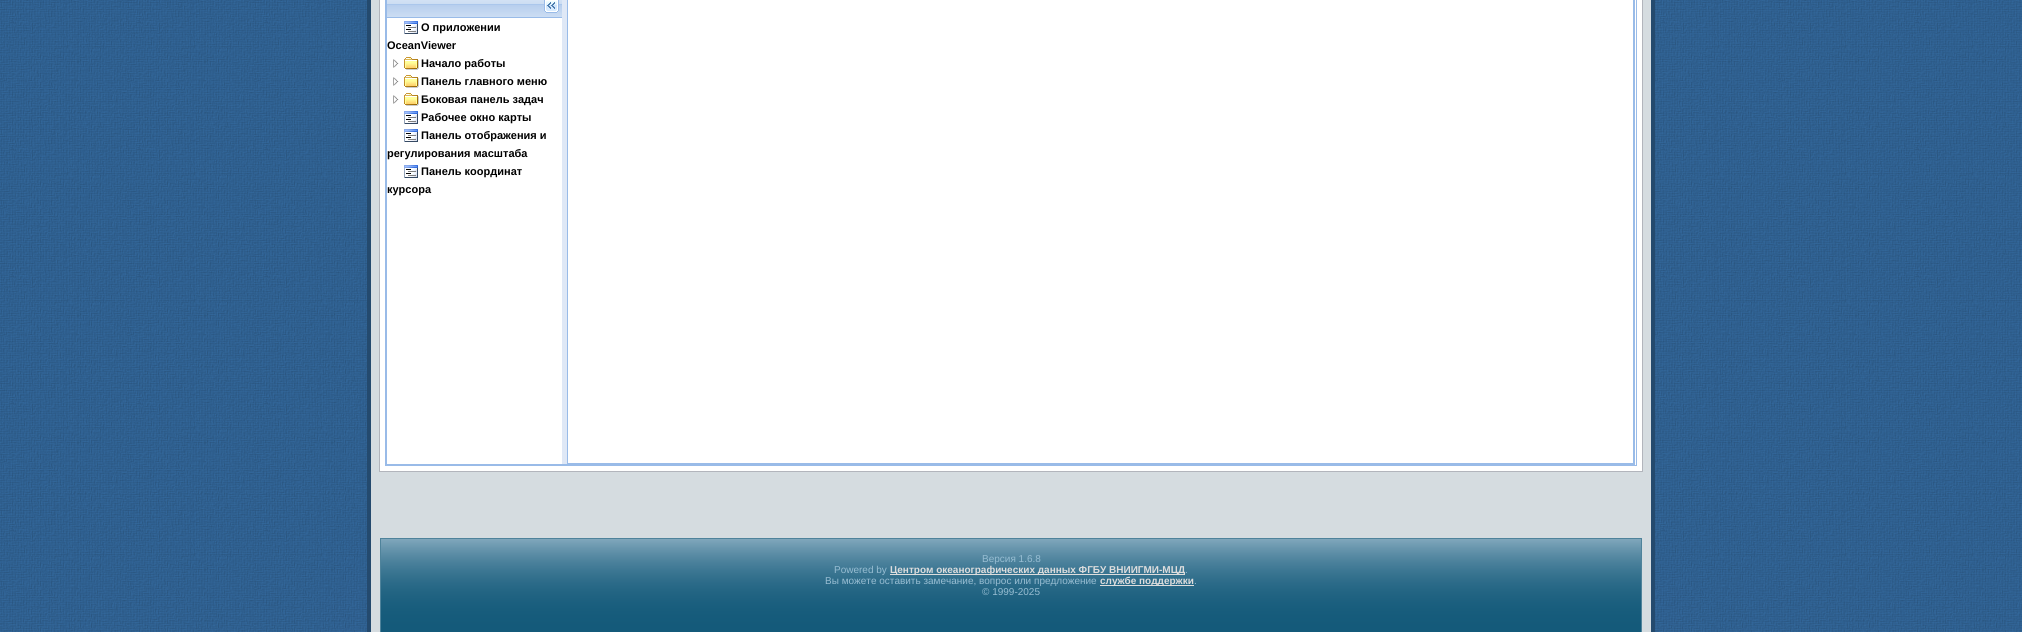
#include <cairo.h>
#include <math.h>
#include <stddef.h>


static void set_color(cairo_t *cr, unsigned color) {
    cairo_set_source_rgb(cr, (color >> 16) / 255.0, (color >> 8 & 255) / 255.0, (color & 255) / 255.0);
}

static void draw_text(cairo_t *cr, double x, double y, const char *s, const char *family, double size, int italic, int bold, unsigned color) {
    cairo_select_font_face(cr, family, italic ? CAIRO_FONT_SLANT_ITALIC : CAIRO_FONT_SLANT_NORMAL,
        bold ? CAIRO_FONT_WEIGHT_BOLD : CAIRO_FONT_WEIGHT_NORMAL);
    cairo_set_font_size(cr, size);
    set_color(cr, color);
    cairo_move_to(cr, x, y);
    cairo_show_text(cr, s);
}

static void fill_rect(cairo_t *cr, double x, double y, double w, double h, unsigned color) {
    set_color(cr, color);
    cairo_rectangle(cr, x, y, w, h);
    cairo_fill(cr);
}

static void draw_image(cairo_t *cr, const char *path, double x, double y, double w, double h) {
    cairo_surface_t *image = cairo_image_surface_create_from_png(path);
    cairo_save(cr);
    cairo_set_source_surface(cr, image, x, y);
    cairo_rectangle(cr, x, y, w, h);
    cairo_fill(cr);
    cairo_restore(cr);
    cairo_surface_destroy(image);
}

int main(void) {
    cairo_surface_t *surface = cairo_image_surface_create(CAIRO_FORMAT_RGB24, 2022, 632);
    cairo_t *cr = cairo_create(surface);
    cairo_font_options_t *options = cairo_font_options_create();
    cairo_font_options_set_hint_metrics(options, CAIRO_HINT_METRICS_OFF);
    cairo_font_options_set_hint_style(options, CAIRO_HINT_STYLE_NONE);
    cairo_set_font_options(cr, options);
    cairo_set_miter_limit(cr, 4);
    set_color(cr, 0xFFFFFF);
    cairo_paint(cr);
    draw_image(cr, "assets/img1.png", 0, 0, 2022, 632);
    fill_rect(cr, 371, 0, 1280, 632, 0xD5DCE0);
    fill_rect(cr, 1651, 0, 4, 632, 0x244A6E);
    fill_rect(cr, 367, 0, 4, 632, 0x244A6E);
    set_color(cr, 0xFFFFFF);
    cairo_rectangle(cr, 379.5, -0.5, 1263, 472);
    cairo_fill_preserve(cr);
    set_color(cr, 0xB2B5BC);
    cairo_set_line_width(cr, 1);
    cairo_stroke(cr);
    fill_rect(cr, 1636, 0, 1, 466, 0x99BBE8);
    fill_rect(cr, 385, 465, 1252, 1, 0x99BBE8);
    fill_rect(cr, 385, 0, 1, 466, 0x99BBE8);
    fill_rect(cr, 562, 0, 5, 464, 0xDFE8F6);
    cairo_rectangle(cr, 386.5, -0.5, 1248, 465);
    set_color(cr, 0x99BBE8);
    cairo_stroke(cr);
    draw_image(cr, "assets/img2.png", 387, 0, 175, 17);
    fill_rect(cr, 387, 17, 175, 1, 0x99BBE8);
    draw_image(cr, "assets/img3.png", 544, 0, 15, 13);
    draw_image(cr, "assets/img4.png", 404, 21, 14, 13);
    draw_text(cr, 421, 31, "О приложении", "Liberation Sans", 11, 0, 1, 0x000000);
    draw_text(cr, 387, 49, "OceanViewer", "Liberation Sans", 11, 0, 1, 0x000000);
    draw_image(cr, "assets/img5.png", 393, 59, 6, 9);
    draw_image(cr, "assets/img6.png", 404, 57, 15, 13);
    draw_text(cr, 421, 67, "Начало работы", "Liberation Sans", 11, 0, 1, 0x000000);
    draw_image(cr, "assets/img5.png", 393, 77, 6, 9);
    draw_image(cr, "assets/img6.png", 404, 75, 15, 13);
    draw_text(cr, 421, 85, "Панель главного меню", "Liberation Sans", 11, 0, 1, 0x000000);
    draw_image(cr, "assets/img5.png", 393, 95, 6, 9);
    draw_image(cr, "assets/img6.png", 404, 93, 15, 13);
    draw_text(cr, 421, 103, "Боковая панель задач", "Liberation Sans", 11, 0, 1, 0x000000);
    draw_image(cr, "assets/img4.png", 404, 111, 14, 13);
    draw_text(cr, 421, 121, "Рабочее окно карты", "Liberation Sans", 11, 0, 1, 0x000000);
    draw_image(cr, "assets/img4.png", 404, 129, 14, 13);
    draw_text(cr, 421, 139, "Панель отображения и", "Liberation Sans", 11, 0, 1, 0x000000);
    draw_text(cr, 387, 157, "регулирования масштаба", "Liberation Sans", 11, 0, 1, 0x000000);
    draw_image(cr, "assets/img4.png", 404, 165, 14, 13);
    draw_text(cr, 421, 175, "Панель координат", "Liberation Sans", 11, 0, 1, 0x000000);
    draw_text(cr, 387, 193, "курсора", "Liberation Sans", 11, 0, 1, 0x000000);
    cairo_rectangle(cr, 567.5, -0.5, 1066, 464);
    set_color(cr, 0x99BBE8);
    cairo_stroke(cr);
    draw_image(cr, "assets/img7.png", 381, 539, 1260, 93);
    fill_rect(cr, 380, 538, 1262, 1, 0x4F839B);
    fill_rect(cr, 1641, 538, 1, 94, 0x4F839B);
    fill_rect(cr, 380, 538, 1, 94, 0x4F839B);
    draw_text(cr, 982, 562, "Версия 1.6.8", "Liberation Sans", 10, 0, 0, 0x97BDD2);
    draw_text(cr, 834, 573, "Powered by", "Liberation Sans", 10, 0, 0, 0x97BDD2);
    fill_rect(cr, 890, 574, 295, 1, 0xDDDDDD);
    draw_text(cr, 890, 573, "Центром океанографических данных ФГБУ ВНИИГМИ-МЦД", "Liberation Sans", 10, 0, 1, 0xDDDDDD);
    draw_text(cr, 1185, 573, ".", "Liberation Sans", 10, 0, 0, 0x97BDD2);
    draw_text(cr, 825, 584, "Вы можете оставить замечание, вопрос или предложение", "Liberation Sans", 10, 0, 0, 0x97BDD2);
    fill_rect(cr, 1100, 585, 94, 1, 0xDDDDDD);
    draw_text(cr, 1100, 584, "службе поддержки", "Liberation Sans", 10, 0, 1, 0xDDDDDD);
    draw_text(cr, 1194, 584, ".", "Liberation Sans", 10, 0, 0, 0x97BDD2);
    draw_text(cr, 982, 595, "© 1999-2025", "Liberation Sans", 10, 0, 0, 0x97BDD2);
    cairo_surface_write_to_png(surface, "output.png");
    cairo_font_options_destroy(options);
    cairo_destroy(cr);
    cairo_surface_destroy(surface);
    return 0;
}
